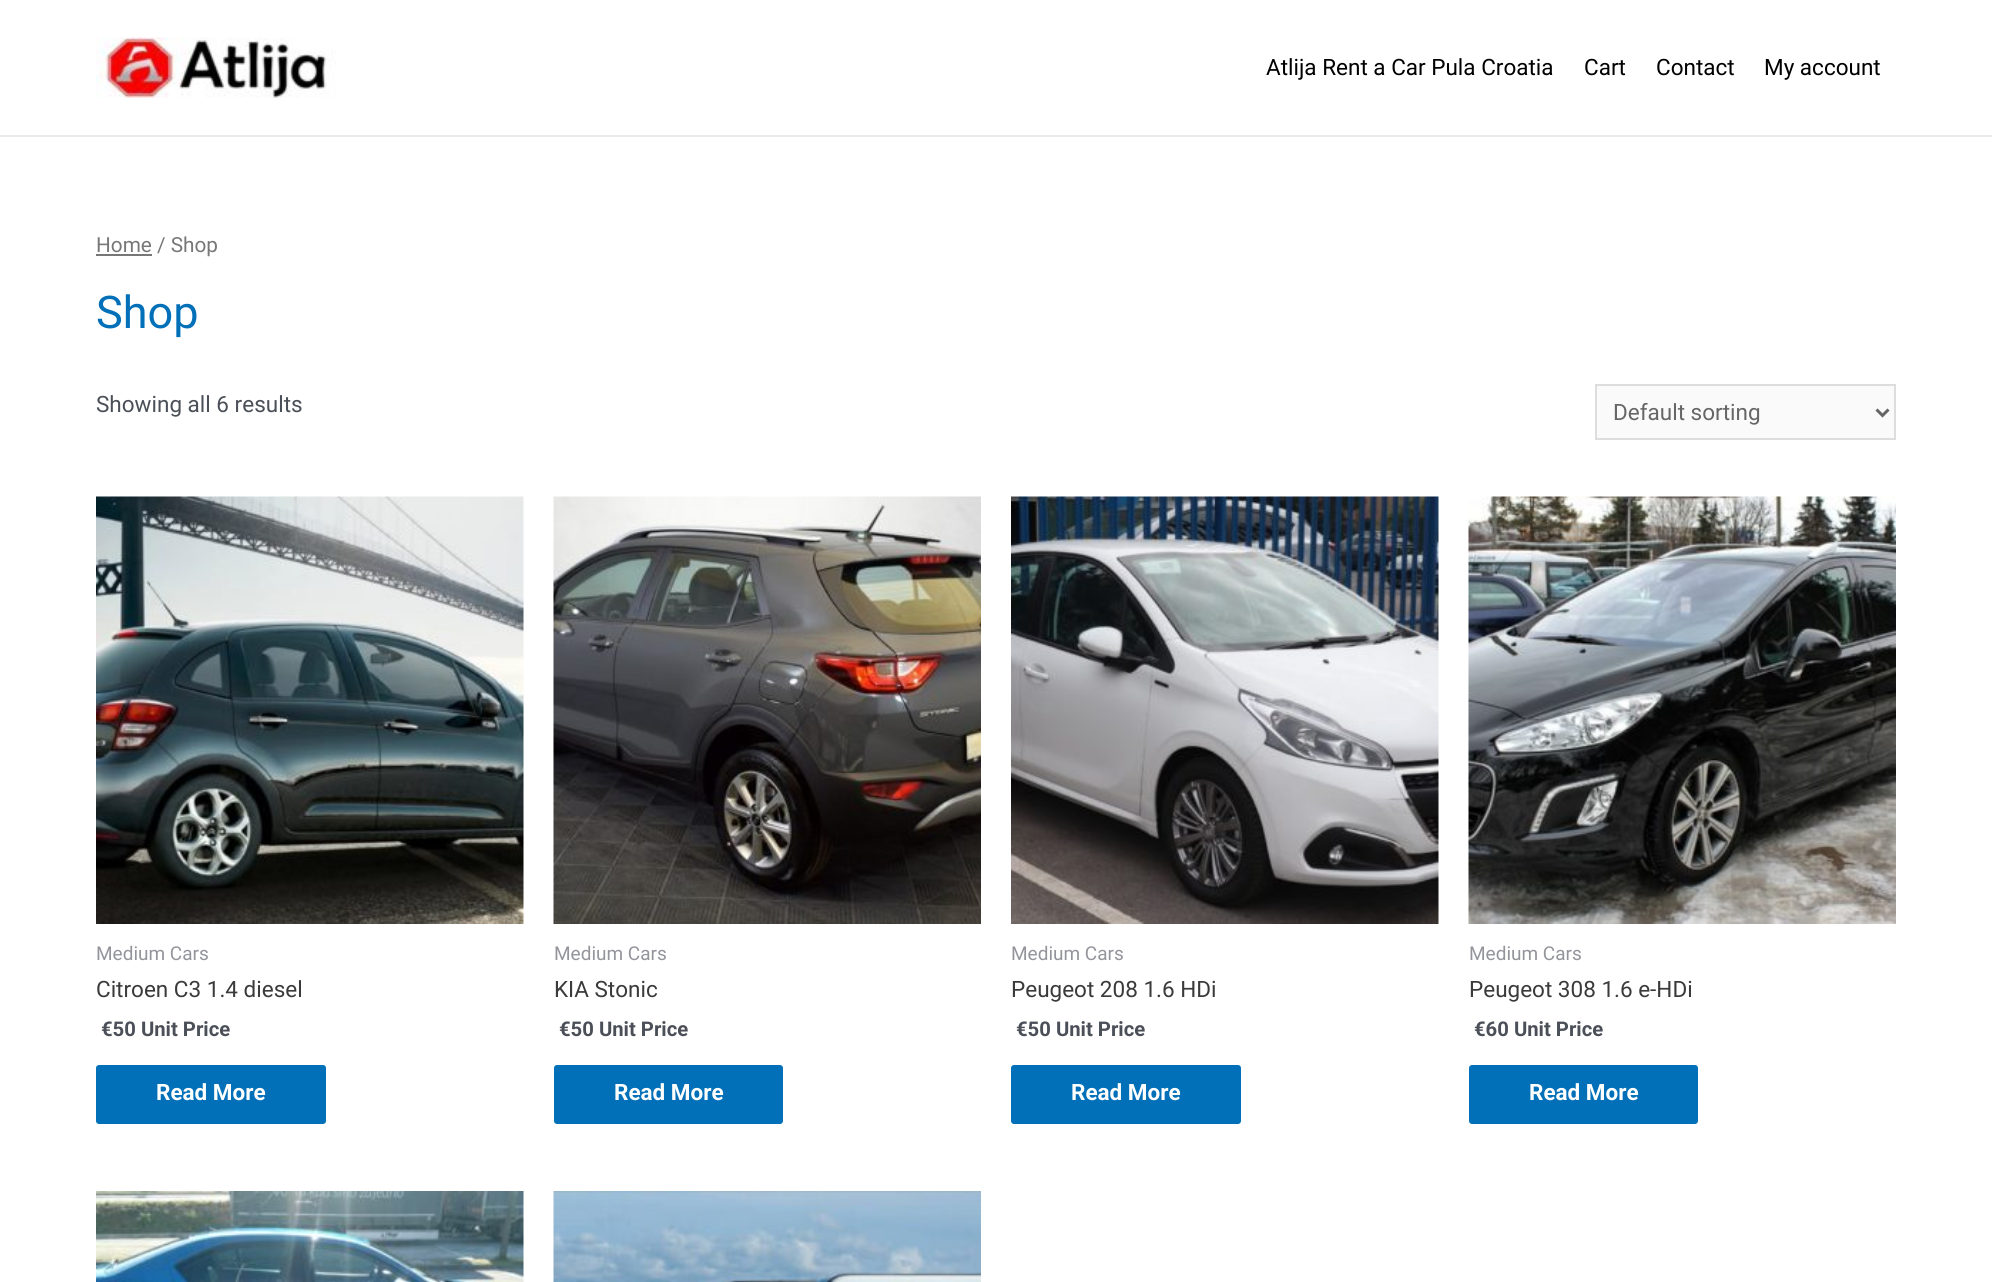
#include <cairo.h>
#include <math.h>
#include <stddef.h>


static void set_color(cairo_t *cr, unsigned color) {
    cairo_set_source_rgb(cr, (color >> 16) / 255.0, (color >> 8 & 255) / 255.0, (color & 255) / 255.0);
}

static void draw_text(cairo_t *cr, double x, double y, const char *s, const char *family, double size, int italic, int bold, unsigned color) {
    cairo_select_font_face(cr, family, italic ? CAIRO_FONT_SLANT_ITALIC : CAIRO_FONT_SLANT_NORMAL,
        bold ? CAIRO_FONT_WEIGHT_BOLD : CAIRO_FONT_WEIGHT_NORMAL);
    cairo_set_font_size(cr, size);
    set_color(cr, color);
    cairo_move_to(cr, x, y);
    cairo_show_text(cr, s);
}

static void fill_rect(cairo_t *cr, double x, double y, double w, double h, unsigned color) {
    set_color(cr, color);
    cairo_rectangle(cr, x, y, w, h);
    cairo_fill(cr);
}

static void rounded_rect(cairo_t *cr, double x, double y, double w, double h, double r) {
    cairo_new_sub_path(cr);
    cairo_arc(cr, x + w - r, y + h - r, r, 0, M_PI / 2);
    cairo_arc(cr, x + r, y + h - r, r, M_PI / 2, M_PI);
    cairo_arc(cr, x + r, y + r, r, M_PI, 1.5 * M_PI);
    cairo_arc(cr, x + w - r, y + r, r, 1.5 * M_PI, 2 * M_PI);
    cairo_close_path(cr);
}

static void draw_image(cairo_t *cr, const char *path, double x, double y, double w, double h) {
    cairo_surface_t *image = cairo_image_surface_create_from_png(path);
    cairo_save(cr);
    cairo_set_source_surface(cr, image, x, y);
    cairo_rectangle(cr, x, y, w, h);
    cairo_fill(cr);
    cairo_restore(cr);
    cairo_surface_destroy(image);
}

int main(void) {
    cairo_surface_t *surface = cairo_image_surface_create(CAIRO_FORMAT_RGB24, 1992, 1282);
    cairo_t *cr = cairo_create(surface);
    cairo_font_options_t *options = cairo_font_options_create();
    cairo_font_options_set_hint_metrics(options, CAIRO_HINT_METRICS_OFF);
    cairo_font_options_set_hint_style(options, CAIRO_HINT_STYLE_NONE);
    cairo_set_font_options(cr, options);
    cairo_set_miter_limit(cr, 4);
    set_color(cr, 0xFFFFFF);
    cairo_paint(cr);
    fill_rect(cr, 0, 135, 1992, 2, 0xEAEAEA);
    draw_image(cr, "assets/img1.png", 96, 37, 240, 61);
    draw_text(cr, 1266, 75, "Atlija Rent a Car Pula Croatia", "Roboto", 22.5, 0, 0, 0x000000);
    draw_text(cr, 1584, 75, "Cart", "Roboto", 22.5, 0, 0, 0x000000);
    draw_text(cr, 1656, 75, "Contact", "Roboto", 22.5, 0, 0, 0x000000);
    draw_text(cr, 1764, 75, "My account", "Roboto", 22.5, 0, 0, 0x000000);
    fill_rect(cr, 96, 254, 56, 2, 0x777777);
    draw_text(cr, 96, 252, "Home / Shop", "Roboto", 20.75, 0, 0, 0x777777);
    draw_text(cr, 96, 328, "Shop", "Roboto", 45, 0, 0, 0x0170B9);
    draw_text(cr, 96, 412, "Showing all 6 results", "Roboto", 22.5, 0, 0, 0x4B4F58);
    set_color(cr, 0xFAFAFA);
    cairo_rectangle(cr, 1596, 385, 299, 54);
    cairo_fill_preserve(cr);
    set_color(cr, 0xDDDDDD);
    cairo_stroke(cr);
    cairo_new_path(cr);
    cairo_move_to(cr, 1876.5, 409.5);
    cairo_line_to(cr, 1882.5, 415.5);
    cairo_line_to(cr, 1888.5, 409.5);
    set_color(cr, 0x666666);
    cairo_set_line_width(cr, 3);
    cairo_stroke(cr);
    draw_text(cr, 1613, 420, "Default sorting", "Roboto", 22.5, 0, 0, 0x666666);
    draw_image(cr, "assets/img2.png", 96, 496, 428, 428);
    draw_text(cr, 96, 960, "Medium Cars", "Roboto", 19, 0, 0, 0x93959B);
    draw_text(cr, 96, 997, "Citroen C3 1.4 diesel", "Roboto", 22.5, 0, 0, 0x3A3A3A);
    draw_text(cr, 101, 1036, "€50 Unit Price", "Roboto", 20.25, 0, 1, 0x4B4F58);
    set_color(cr, 0x0170B9);
    rounded_rect(cr, 96, 1065, 230, 59, 3);
    cairo_fill(cr);
    draw_text(cr, 156, 1100, "Read More", "Roboto", 22.5, 0, 1, 0xFFFFFF);
    draw_image(cr, "assets/img3.png", 553, 496, 428, 428);
    draw_text(cr, 554, 960, "Medium Cars", "Roboto", 19, 0, 0, 0x93959B);
    draw_text(cr, 554, 997, "KIA Stonic", "Roboto", 22.5, 0, 0, 0x3A3A3A);
    draw_text(cr, 559, 1036, "€50 Unit Price", "Roboto", 20.25, 0, 1, 0x4B4F58);
    set_color(cr, 0x0170B9);
    rounded_rect(cr, 554, 1065, 229, 59, 3);
    cairo_fill(cr);
    draw_text(cr, 614, 1100, "Read More", "Roboto", 22.5, 0, 1, 0xFFFFFF);
    draw_image(cr, "assets/img4.png", 1011, 496, 428, 428);
    draw_text(cr, 1011, 960, "Medium Cars", "Roboto", 19, 0, 0, 0x93959B);
    draw_text(cr, 1011, 997, "Peugeot 208 1.6 HDi", "Roboto", 22.5, 0, 0, 0x3A3A3A);
    draw_text(cr, 1016, 1036, "€50 Unit Price", "Roboto", 20.25, 0, 1, 0x4B4F58);
    set_color(cr, 0x0170B9);
    rounded_rect(cr, 1011, 1065, 230, 59, 3);
    cairo_fill(cr);
    draw_text(cr, 1071, 1100, "Read More", "Roboto", 22.5, 0, 1, 0xFFFFFF);
    draw_image(cr, "assets/img5.png", 1468, 496, 428, 428);
    draw_text(cr, 1469, 960, "Medium Cars", "Roboto", 19, 0, 0, 0x93959B);
    draw_text(cr, 1469, 997, "Peugeot 308 1.6 e-HDi", "Roboto", 22.5, 0, 0, 0x3A3A3A);
    draw_text(cr, 1474, 1036, "€60 Unit Price", "Roboto", 20.25, 0, 1, 0x4B4F58);
    set_color(cr, 0x0170B9);
    rounded_rect(cr, 1469, 1065, 229, 59, 3);
    cairo_fill(cr);
    draw_text(cr, 1529, 1100, "Read More", "Roboto", 22.5, 0, 1, 0xFFFFFF);
    draw_image(cr, "assets/img6.png", 96, 1191, 428, 91);
    draw_image(cr, "assets/img7.png", 553, 1191, 428, 91);
    cairo_surface_write_to_png(surface, "output.png");
    cairo_font_options_destroy(options);
    cairo_destroy(cr);
    cairo_surface_destroy(surface);
    return 0;
}
